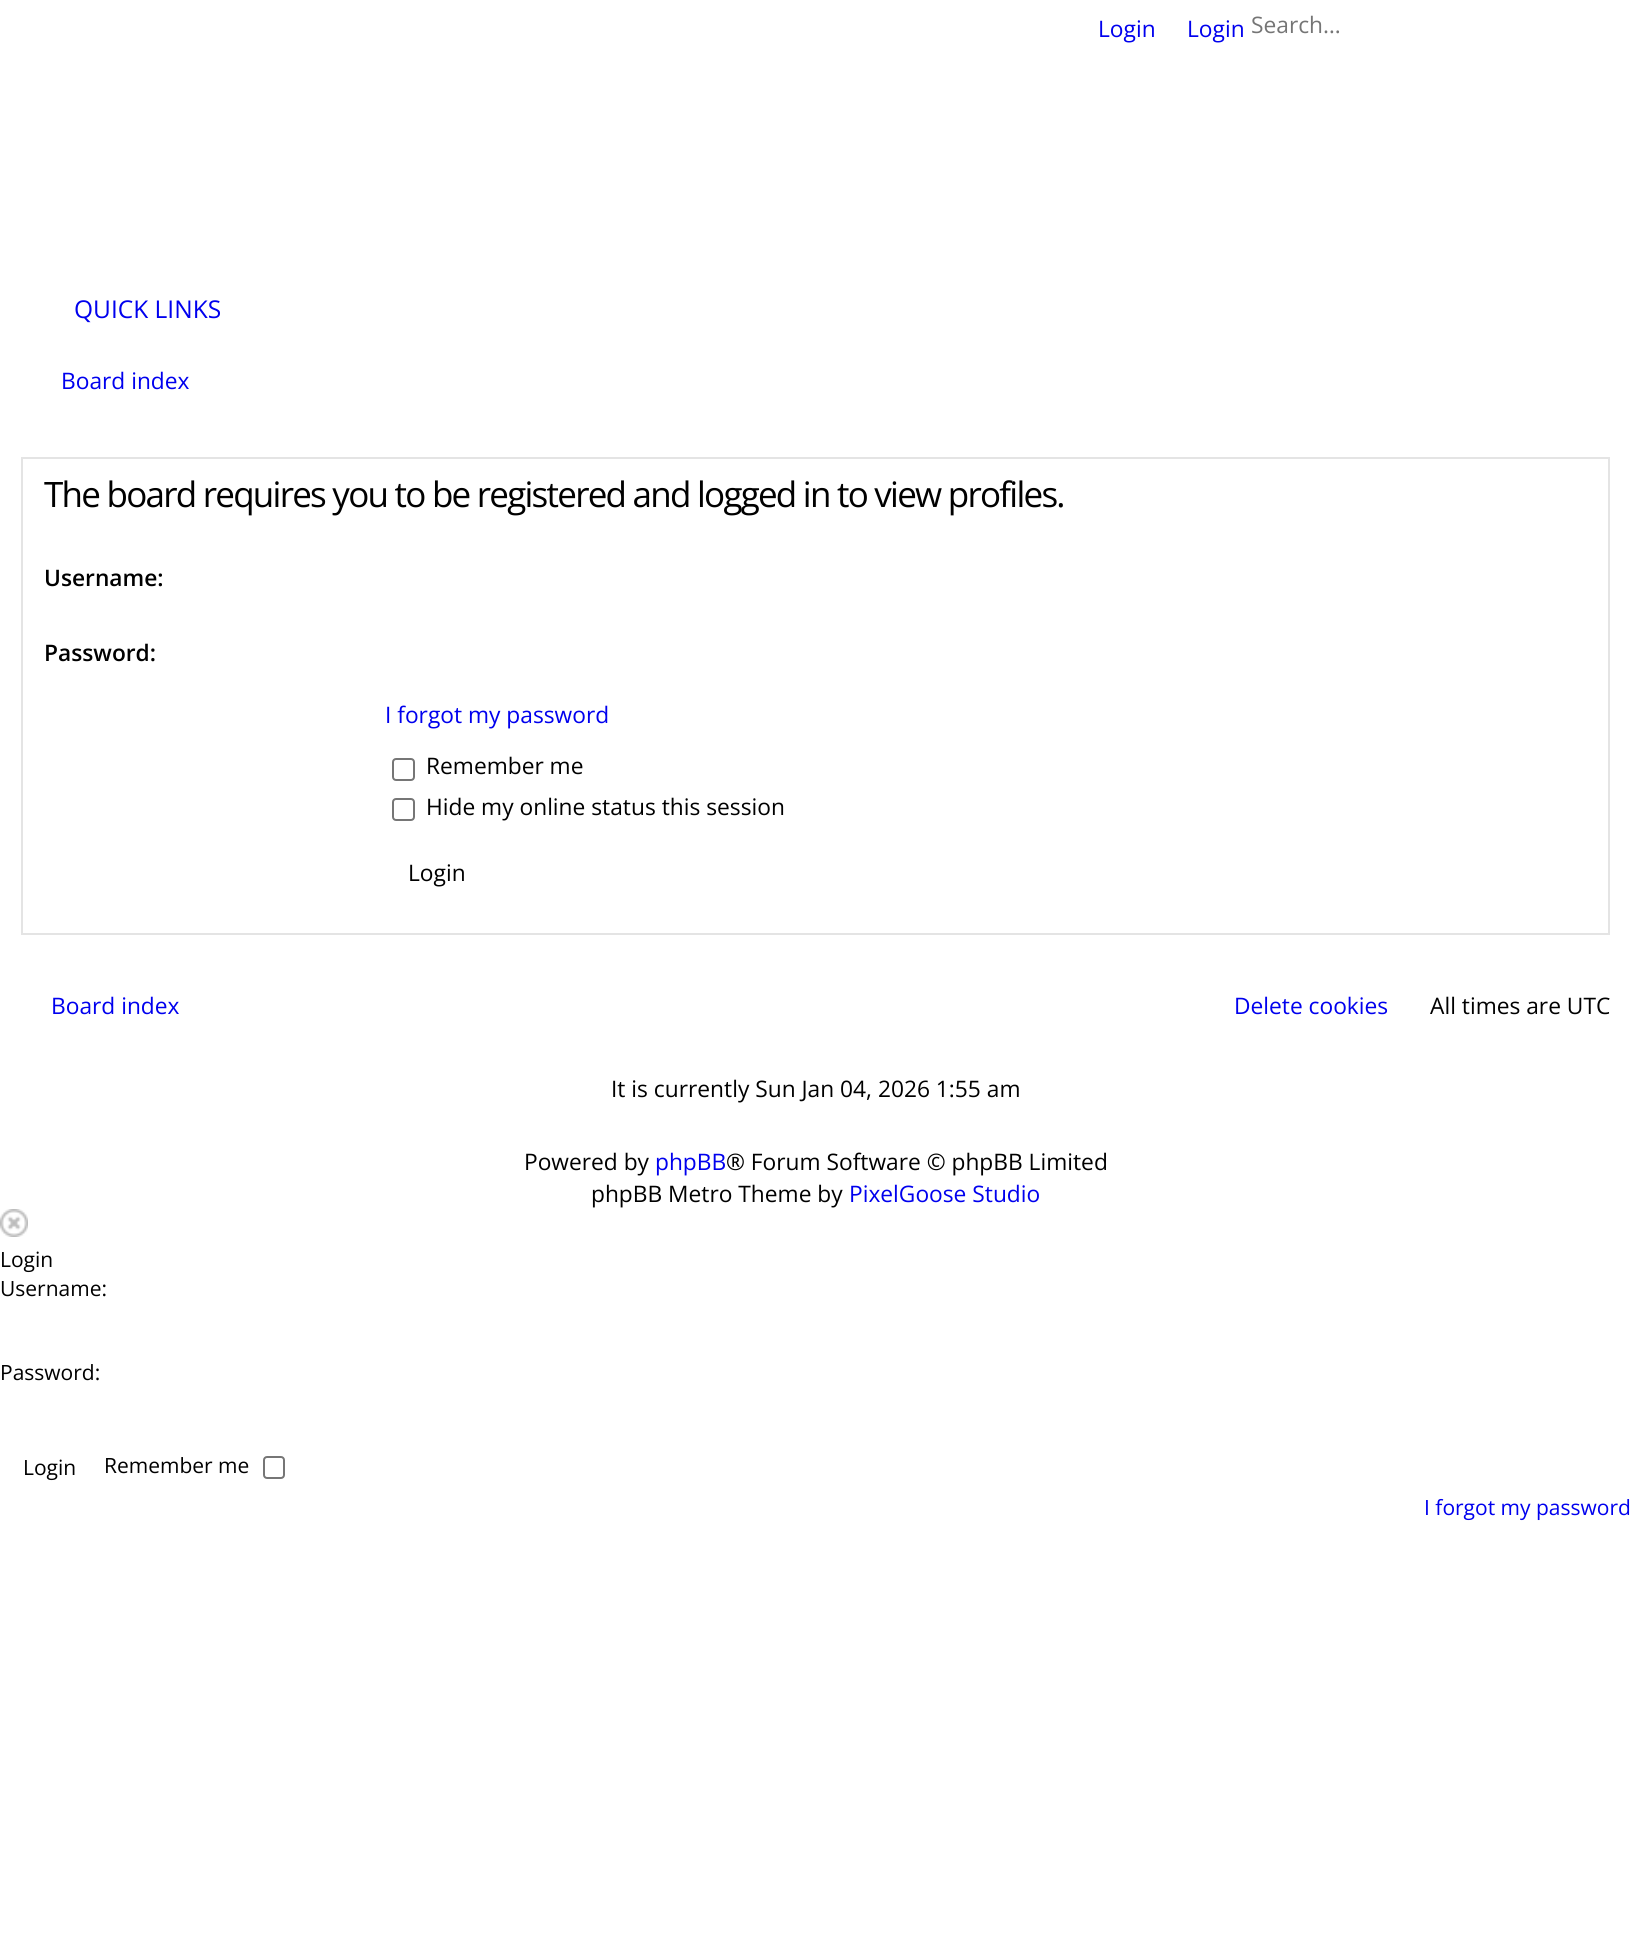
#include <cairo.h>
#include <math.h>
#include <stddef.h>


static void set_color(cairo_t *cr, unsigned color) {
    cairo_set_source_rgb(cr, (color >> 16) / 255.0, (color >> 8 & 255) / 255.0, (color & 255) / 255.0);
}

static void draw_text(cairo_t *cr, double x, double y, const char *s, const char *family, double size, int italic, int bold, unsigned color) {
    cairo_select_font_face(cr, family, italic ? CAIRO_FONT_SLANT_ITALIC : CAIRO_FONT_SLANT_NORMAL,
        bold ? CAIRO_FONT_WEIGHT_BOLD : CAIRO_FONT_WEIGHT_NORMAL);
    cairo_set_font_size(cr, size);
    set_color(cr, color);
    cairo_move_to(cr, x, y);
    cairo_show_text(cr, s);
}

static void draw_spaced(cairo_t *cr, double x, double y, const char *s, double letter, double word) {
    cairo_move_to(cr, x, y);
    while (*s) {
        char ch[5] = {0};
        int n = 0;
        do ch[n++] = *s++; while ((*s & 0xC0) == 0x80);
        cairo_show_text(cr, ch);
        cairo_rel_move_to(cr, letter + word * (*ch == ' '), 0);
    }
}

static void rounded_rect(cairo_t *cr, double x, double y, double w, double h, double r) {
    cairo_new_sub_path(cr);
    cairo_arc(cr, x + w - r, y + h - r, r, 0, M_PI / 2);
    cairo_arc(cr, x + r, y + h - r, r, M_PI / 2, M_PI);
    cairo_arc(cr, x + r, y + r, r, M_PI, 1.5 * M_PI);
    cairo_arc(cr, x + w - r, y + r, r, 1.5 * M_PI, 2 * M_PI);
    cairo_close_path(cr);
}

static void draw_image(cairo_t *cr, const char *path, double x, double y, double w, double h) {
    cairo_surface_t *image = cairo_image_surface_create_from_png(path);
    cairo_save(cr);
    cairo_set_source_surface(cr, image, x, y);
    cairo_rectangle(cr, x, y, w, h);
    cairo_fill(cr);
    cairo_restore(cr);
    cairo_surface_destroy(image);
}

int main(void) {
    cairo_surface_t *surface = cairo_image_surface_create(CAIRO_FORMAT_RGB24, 1631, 1952);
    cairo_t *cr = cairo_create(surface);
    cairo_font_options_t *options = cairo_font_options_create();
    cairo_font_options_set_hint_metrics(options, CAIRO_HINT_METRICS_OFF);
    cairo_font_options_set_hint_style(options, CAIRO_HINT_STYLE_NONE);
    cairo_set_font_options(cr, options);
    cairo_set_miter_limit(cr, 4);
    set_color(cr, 0xFFFFFF);
    cairo_paint(cr);
    draw_text(cr, 1098, 37, "Login", "Open Sans", 22.75, 0, 0, 0x0000EE);
    draw_text(cr, 1187, 37, "Login", "Open Sans", 22.75, 0, 0, 0x0000EE);
    draw_text(cr, 1251, 33, "Search…", "Open Sans", 22.75, 0, 0, 0x757575);
    draw_text(cr, 74, 318, "QUICK LINKS", "Open Sans", 24.5, 0, 0, 0x0000EE);
    draw_text(cr, 61, 389, "Board index", "Open Sans", 22.75, 0, 0, 0x0000EE);
    cairo_rectangle(cr, 22, 458, 1587, 476);
    set_color(cr, 0xE4E4E4);
    cairo_stroke(cr);
    cairo_set_font_size(cr, 35);
    set_color(cr, 0x000000);
    draw_spaced(cr, 44, 507, "The board requires you to be registered and logged in to view profiles.", -1.75, 0);
    draw_text(cr, 44, 586, "Username:", "Open Sans SemiBold", 22.75, 0, 0, 0x000000);
    draw_text(cr, 44, 661, "Password:", "Open Sans SemiBold", 22.75, 0, 0, 0x000000);
    draw_text(cr, 385, 723, "I forgot my password", "Open Sans", 22.75, 0, 0, 0x0000EE);
    rounded_rect(cr, 393, 759, 21, 21, 3);
    set_color(cr, 0x767676);
    cairo_stroke(cr);
    draw_text(cr, 426, 774, "Remember me", "Open Sans", 22.75, 0, 0, 0x000000);
    rounded_rect(cr, 393, 799, 21, 21, 3);
    set_color(cr, 0x767676);
    cairo_stroke(cr);
    draw_text(cr, 426, 815, "Hide my online status this session", "Open Sans", 22.75, 0, 0, 0x000000);
    draw_text(cr, 408, 881, "Login", "Open Sans", 22.75, 0, 0, 0x000000);
    draw_text(cr, 51, 1014, "Board index", "Open Sans", 22.75, 0, 0, 0x0000EE);
    draw_text(cr, 1234, 1014, "Delete cookies", "Open Sans", 22.75, 0, 0, 0x0000EE);
    draw_text(cr, 1430, 1014, "All times are UTC", "Open Sans", 22.75, 0, 0, 0x000000);
    draw_text(cr, 611, 1097, "It is currently Sun Jan 04, 2026 1:55 am", "Open Sans", 22.75, 0, 0, 0x000000);
    draw_text(cr, 524, 1170, "Powered by", "Open Sans", 22.75, 0, 0, 0x000000);
    draw_text(cr, 655, 1170, "phpBB", "Open Sans", 22.75, 0, 0, 0x0000EE);
    draw_text(cr, 726, 1170, "® Forum Software © phpBB Limited", "Open Sans", 22.75, 0, 0, 0x000000);
    draw_text(cr, 591, 1202, "phpBB Metro Theme by", "Open Sans", 22.75, 0, 0, 0x000000);
    draw_text(cr, 849, 1202, "PixelGoose Studio", "Open Sans", 22.75, 0, 0, 0x0000EE);
    draw_image(cr, "assets/img1.png", 0, 1209, 28, 28);
    draw_text(cr, 0, 1267, "Login", "Open Sans", 21, 0, 0, 0x000000);
    draw_text(cr, 0, 1296, "Username:", "Open Sans", 21, 0, 0, 0x000000);
    draw_text(cr, 0, 1380, "Password:", "Open Sans", 21, 0, 0, 0x000000);
    draw_text(cr, 23, 1475, "Login", "Open Sans", 21, 0, 0, 0x000000);
    draw_text(cr, 104, 1473, "Remember me", "Open Sans", 21, 0, 0, 0x000000);
    rounded_rect(cr, 264, 1457, 20, 21, 3);
    set_color(cr, 0x767676);
    cairo_stroke(cr);
    draw_text(cr, 1424, 1515, "I forgot my password", "Open Sans", 21, 0, 0, 0x0000EE);
    cairo_surface_write_to_png(surface, "output.png");
    cairo_font_options_destroy(options);
    cairo_destroy(cr);
    cairo_surface_destroy(surface);
    return 0;
}
